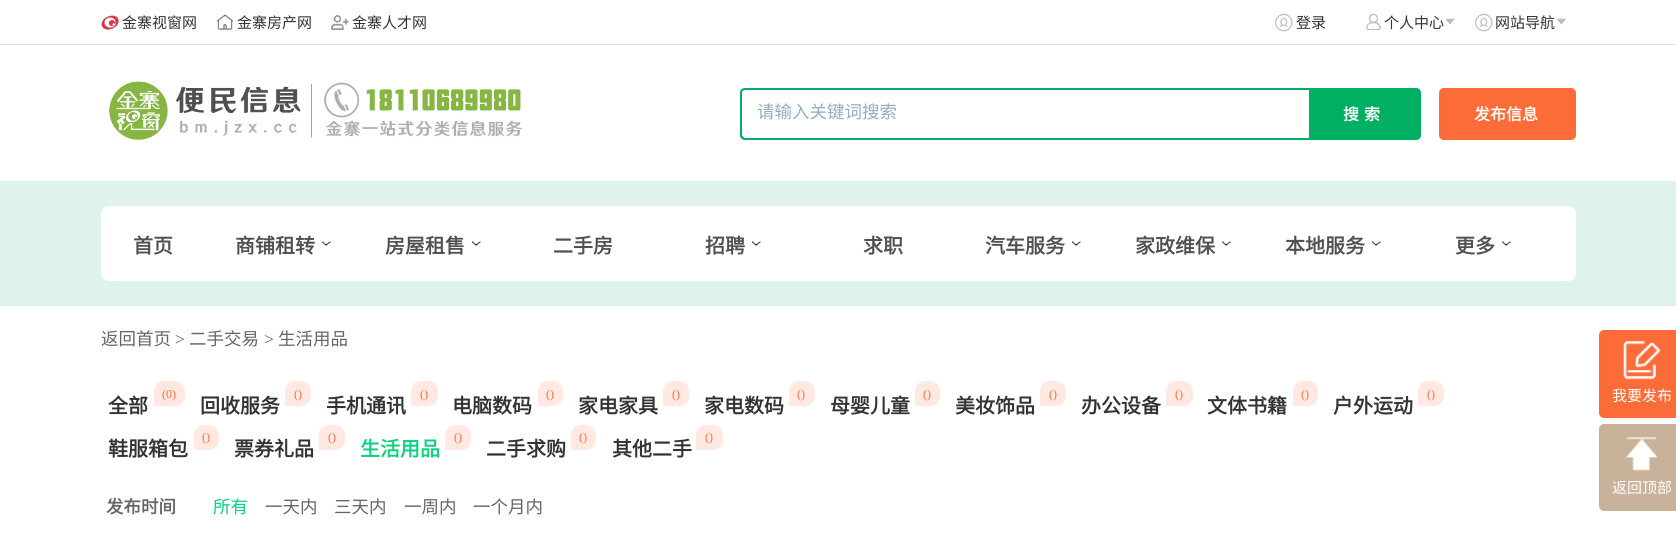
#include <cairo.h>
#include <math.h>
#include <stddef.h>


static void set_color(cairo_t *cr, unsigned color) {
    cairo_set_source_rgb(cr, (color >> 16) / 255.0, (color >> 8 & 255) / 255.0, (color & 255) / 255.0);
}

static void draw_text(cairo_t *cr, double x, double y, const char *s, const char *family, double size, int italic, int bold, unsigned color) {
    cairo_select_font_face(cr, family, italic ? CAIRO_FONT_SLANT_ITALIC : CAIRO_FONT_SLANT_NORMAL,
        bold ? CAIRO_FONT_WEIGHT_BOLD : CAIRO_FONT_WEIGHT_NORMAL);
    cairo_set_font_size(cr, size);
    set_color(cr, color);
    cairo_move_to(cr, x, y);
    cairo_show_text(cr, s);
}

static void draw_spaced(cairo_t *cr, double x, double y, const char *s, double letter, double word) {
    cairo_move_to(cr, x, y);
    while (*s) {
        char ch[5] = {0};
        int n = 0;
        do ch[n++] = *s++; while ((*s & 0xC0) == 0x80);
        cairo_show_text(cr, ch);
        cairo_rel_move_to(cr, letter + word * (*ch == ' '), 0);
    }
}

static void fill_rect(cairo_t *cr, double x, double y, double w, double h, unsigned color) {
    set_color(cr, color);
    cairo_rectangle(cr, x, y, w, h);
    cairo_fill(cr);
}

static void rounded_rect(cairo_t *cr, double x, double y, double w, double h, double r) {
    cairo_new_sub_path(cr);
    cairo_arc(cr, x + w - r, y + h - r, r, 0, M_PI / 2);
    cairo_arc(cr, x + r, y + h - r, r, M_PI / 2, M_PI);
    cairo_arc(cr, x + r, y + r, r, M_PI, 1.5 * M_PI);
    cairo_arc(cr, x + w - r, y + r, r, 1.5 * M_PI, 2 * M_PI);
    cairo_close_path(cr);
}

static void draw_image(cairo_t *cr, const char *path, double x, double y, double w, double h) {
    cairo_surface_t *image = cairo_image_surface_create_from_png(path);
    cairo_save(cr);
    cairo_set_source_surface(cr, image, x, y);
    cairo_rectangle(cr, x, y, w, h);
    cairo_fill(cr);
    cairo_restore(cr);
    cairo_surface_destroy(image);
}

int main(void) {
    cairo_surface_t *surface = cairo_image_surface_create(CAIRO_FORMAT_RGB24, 1676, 536);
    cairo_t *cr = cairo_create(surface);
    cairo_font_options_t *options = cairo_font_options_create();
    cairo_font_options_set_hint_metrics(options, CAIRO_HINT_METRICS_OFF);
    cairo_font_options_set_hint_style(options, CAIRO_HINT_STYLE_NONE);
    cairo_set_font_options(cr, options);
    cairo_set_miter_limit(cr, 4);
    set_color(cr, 0xFFFFFF);
    cairo_paint(cr);
    fill_rect(cr, 0, 44, 1676, 1, 0xDFDFDF);
    draw_image(cr, "assets/img1.png", 101, 15, 18, 15);
    draw_text(cr, 122, 28, "金寨视窗网", "Noto Sans CJK SC", 15, 0, 0, 0x333333);
    draw_image(cr, "assets/img2.png", 216, 14, 18, 16);
    draw_text(cr, 237, 28, "金寨房产网", "Noto Sans CJK SC", 15, 0, 0, 0x333333);
    draw_image(cr, "assets/img3.png", 331, 15, 18, 15);
    draw_text(cr, 352, 28, "金寨人才网", "Noto Sans CJK SC", 15, 0, 0, 0x333333);
    draw_image(cr, "assets/img4.png", 1275, 13, 18, 19);
    draw_text(cr, 1296, 28, "登录", "Noto Sans CJK SC", 15, 0, 0, 0x333333);
    draw_image(cr, "assets/img5.png", 1366, 13, 15, 17);
    draw_text(cr, 1384, 28, "个人中心", "Noto Sans CJK SC", 15, 0, 0, 0x333333);
    draw_image(cr, "assets/img6.png", 1445, 18, 10, 7);
    draw_image(cr, "assets/img4.png", 1475, 13, 18, 19);
    draw_text(cr, 1495, 28, "网站导航", "Noto Sans CJK SC", 15, 0, 0, 0x333333);
    draw_image(cr, "assets/img7.png", 1557, 18, 9, 7);
    draw_image(cr, "assets/img8.png", 109, 81, 413, 59);
    set_color(cr, 0x01AF63);
    cairo_set_fill_rule(cr, CAIRO_FILL_RULE_EVEN_ODD);
    cairo_new_path(cr);
    cairo_move_to(cr, 745, 88);
    cairo_line_to(cr, 1309, 88);
    cairo_line_to(cr, 1309, 140);
    cairo_line_to(cr, 745, 140);
    cairo_curve_to(cr, 742, 140, 740, 138, 740, 135);
    cairo_line_to(cr, 740, 92);
    cairo_curve_to(cr, 740, 90, 742, 88, 745, 88);
    cairo_close_path(cr);
    cairo_move_to(cr, 745, 90);
    cairo_line_to(cr, 1309, 90);
    cairo_line_to(cr, 1309, 138);
    cairo_line_to(cr, 745, 138);
    cairo_curve_to(cr, 744, 138, 742, 136, 742, 135);
    cairo_line_to(cr, 742, 92);
    cairo_curve_to(cr, 742, 91, 744, 90, 745, 90);
    cairo_close_path(cr);
    cairo_fill(cr);
    draw_text(cr, 757, 118, "请输入关键词搜索", "Noto Sans CJK SC", 17.5, 0, 0, 0x94ACC2);
    set_color(cr, 0x01AF63);
    cairo_new_path(cr);
    cairo_move_to(cr, 1309, 88);
    cairo_line_to(cr, 1416, 88);
    cairo_curve_to(cr, 1419, 88, 1421, 90, 1421, 93);
    cairo_line_to(cr, 1421, 135);
    cairo_curve_to(cr, 1421, 138, 1419, 140, 1416, 140);
    cairo_line_to(cr, 1309, 140);
    cairo_close_path(cr);
    cairo_fill(cr);
    cairo_select_font_face(cr, "Noto Sans CJK SC", CAIRO_FONT_SLANT_NORMAL, CAIRO_FONT_WEIGHT_BOLD);
    cairo_set_font_size(cr, 16);
    set_color(cr, 0xFFFFFF);
    draw_spaced(cr, 1343, 120, "搜索", 5, 0);
    set_color(cr, 0xFC6C38);
    rounded_rect(cr, 1439, 88, 137, 52, 5);
    cairo_fill(cr);
    draw_text(cr, 1474, 120, "发布信息", "Noto Sans CJK SC", 16, 0, 1, 0xFFFFFF);
    fill_rect(cr, 0, 181, 1676, 125, 0xE0F2EC);
    set_color(cr, 0xFFFFFF);
    rounded_rect(cr, 101, 206, 1475, 75, 8);
    cairo_fill(cr);
    draw_text(cr, 133, 253, "首页", "Noto Sans CJK SC", 20, 0, 1, 0x514F4F);
    draw_text(cr, 235, 253, "商铺租转", "Noto Sans CJK SC", 20, 0, 1, 0x514F4F);
    draw_image(cr, "assets/img9.png", 321, 241, 10, 5);
    draw_text(cr, 385, 253, "房屋租售", "Noto Sans CJK SC", 20, 0, 1, 0x514F4F);
    draw_image(cr, "assets/img9.png", 471, 241, 10, 5);
    draw_text(cr, 553, 253, "二手房", "Noto Sans CJK SC", 20, 0, 1, 0x514F4F);
    draw_text(cr, 705, 253, "招聘", "Noto Sans CJK SC", 20, 0, 1, 0x514F4F);
    draw_image(cr, "assets/img9.png", 751, 241, 10, 5);
    draw_text(cr, 863, 253, "求职", "Noto Sans CJK SC", 20, 0, 1, 0x514F4F);
    draw_text(cr, 985, 253, "汽车服务", "Noto Sans CJK SC", 20, 0, 1, 0x514F4F);
    draw_image(cr, "assets/img9.png", 1071, 241, 10, 5);
    draw_text(cr, 1135, 253, "家政维保", "Noto Sans CJK SC", 20, 0, 1, 0x514F4F);
    draw_image(cr, "assets/img9.png", 1221, 241, 10, 5);
    draw_text(cr, 1285, 253, "本地服务", "Noto Sans CJK SC", 20, 0, 1, 0x514F4F);
    draw_image(cr, "assets/img9.png", 1371, 241, 10, 5);
    draw_text(cr, 1455, 253, "更多", "Noto Sans CJK SC", 20, 0, 1, 0x514F4F);
    draw_image(cr, "assets/img9.png", 1501, 241, 10, 5);
    set_color(cr, 0xFC6C38);
    rounded_rect(cr, 1599, 330, 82, 88, 5);
    cairo_fill(cr);
    draw_image(cr, "assets/img10.png", 1623, 341, 38, 39);
    draw_text(cr, 1612, 401, "我要发布", "Noto Sans CJK SC", 15, 0, 0, 0xFFFFFF);
    set_color(cr, 0xC8B39A);
    rounded_rect(cr, 1599, 424, 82, 87, 5);
    cairo_fill(cr);
    draw_image(cr, "assets/img11.png", 1626, 437, 32, 34);
    draw_text(cr, 1612, 493, "返回顶部", "Noto Sans CJK SC", 15, 0, 0, 0xFFFFFF);
    draw_text(cr, 101, 345, "返回首页", "Noto Sans CJK SC", 17.5, 0, 0, 0x666666);
    draw_text(cr, 175, 345, ">", "Liberation Serif", 17.5, 0, 0, 0x666666);
    draw_text(cr, 189, 345, "二手交易", "Noto Sans CJK SC", 17.5, 0, 0, 0x666666);
    draw_text(cr, 264, 345, ">", "Liberation Serif", 17.5, 0, 0, 0x666666);
    draw_text(cr, 278, 345, "生活用品", "Noto Sans CJK SC", 17.5, 0, 0, 0x666666);
    draw_text(cr, 108, 413, "全部", "Noto Sans CJK SC", 20, 0, 1, 0x333333);
    set_color(cr, 0xFFE9E1);
    cairo_new_path(cr);
    cairo_move_to(cr, 164, 381);
    cairo_line_to(cr, 175, 381);
    cairo_curve_to(cr, 180.5, 381, 185, 385.5, 185, 391);
    cairo_line_to(cr, 185, 396);
    cairo_curve_to(cr, 185, 401.5, 180.5, 406, 175, 406);
    cairo_line_to(cr, 154, 406);
    cairo_line_to(cr, 154, 391);
    cairo_curve_to(cr, 154, 385.5, 158.5, 381, 164, 381);
    cairo_close_path(cr);
    cairo_fill(cr);
    draw_text(cr, 162, 398, "(0)", "Liberation Serif", 12, 0, 0, 0xFC6C38);
    draw_text(cr, 200, 413, "回收服务", "Noto Sans CJK SC", 20, 0, 1, 0x333333);
    set_color(cr, 0xFFE9E1);
    cairo_new_path(cr);
    cairo_move_to(cr, 295, 381);
    cairo_line_to(cr, 301, 381);
    cairo_curve_to(cr, 306.5, 381, 311, 385.5, 311, 391);
    cairo_line_to(cr, 311, 396);
    cairo_curve_to(cr, 311, 401.5, 306.5, 406, 301, 406);
    cairo_line_to(cr, 285, 406);
    cairo_line_to(cr, 285, 391);
    cairo_curve_to(cr, 285, 385.5, 289.5, 381, 295, 381);
    cairo_close_path(cr);
    cairo_fill(cr);
    draw_text(cr, 294, 398, "()", "Liberation Serif", 12, 0, 0, 0xFC6C38);
    draw_text(cr, 326, 413, "手机通讯", "Noto Sans CJK SC", 20, 0, 1, 0x333333);
    set_color(cr, 0xFFE9E1);
    cairo_new_path(cr);
    cairo_move_to(cr, 421, 381);
    cairo_line_to(cr, 428, 381);
    cairo_curve_to(cr, 433.5, 381, 438, 385.5, 438, 391);
    cairo_line_to(cr, 438, 396);
    cairo_curve_to(cr, 438, 401.5, 433.5, 406, 428, 406);
    cairo_line_to(cr, 411, 406);
    cairo_line_to(cr, 411, 391);
    cairo_curve_to(cr, 411, 385.5, 415.5, 381, 421, 381);
    cairo_close_path(cr);
    cairo_fill(cr);
    draw_text(cr, 420, 398, "()", "Liberation Serif", 12, 0, 0, 0xFC6C38);
    draw_text(cr, 452, 413, "电脑数码", "Noto Sans CJK SC", 20, 0, 1, 0x333333);
    set_color(cr, 0xFFE9E1);
    cairo_new_path(cr);
    cairo_move_to(cr, 548, 381);
    cairo_line_to(cr, 553, 381);
    cairo_curve_to(cr, 558.5, 381, 563, 385.5, 563, 391);
    cairo_line_to(cr, 563, 396);
    cairo_curve_to(cr, 563, 401.5, 558.5, 406, 553, 406);
    cairo_line_to(cr, 538, 406);
    cairo_line_to(cr, 538, 391);
    cairo_curve_to(cr, 538, 385.5, 542.5, 381, 548, 381);
    cairo_close_path(cr);
    cairo_fill(cr);
    draw_text(cr, 546, 398, "()", "Liberation Serif", 12, 0, 0, 0xFC6C38);
    draw_text(cr, 578, 413, "家电家具", "Noto Sans CJK SC", 20, 0, 1, 0x333333);
    set_color(cr, 0xFFE9E1);
    cairo_new_path(cr);
    cairo_move_to(cr, 673, 381);
    cairo_line_to(cr, 679, 381);
    cairo_curve_to(cr, 684.5, 381, 689, 385.5, 689, 391);
    cairo_line_to(cr, 689, 396);
    cairo_curve_to(cr, 689, 401.5, 684.5, 406, 679, 406);
    cairo_line_to(cr, 663, 406);
    cairo_line_to(cr, 663, 391);
    cairo_curve_to(cr, 663, 385.5, 667.5, 381, 673, 381);
    cairo_close_path(cr);
    cairo_fill(cr);
    draw_text(cr, 672, 398, "()", "Liberation Serif", 12, 0, 0, 0xFC6C38);
    draw_text(cr, 704, 413, "家电数码", "Noto Sans CJK SC", 20, 0, 1, 0x333333);
    set_color(cr, 0xFFE9E1);
    cairo_new_path(cr);
    cairo_move_to(cr, 799, 381);
    cairo_line_to(cr, 805, 381);
    cairo_curve_to(cr, 810.5, 381, 815, 385.5, 815, 391);
    cairo_line_to(cr, 815, 396);
    cairo_curve_to(cr, 815, 401.5, 810.5, 406, 805, 406);
    cairo_line_to(cr, 789, 406);
    cairo_line_to(cr, 789, 391);
    cairo_curve_to(cr, 789, 385.5, 793.5, 381, 799, 381);
    cairo_close_path(cr);
    cairo_fill(cr);
    draw_text(cr, 797, 398, "()", "Liberation Serif", 12, 0, 0, 0xFC6C38);
    draw_text(cr, 830, 413, "母婴儿童", "Noto Sans CJK SC", 20, 0, 1, 0x333333);
    set_color(cr, 0xFFE9E1);
    cairo_new_path(cr);
    cairo_move_to(cr, 925, 381);
    cairo_line_to(cr, 930, 381);
    cairo_curve_to(cr, 935.5, 381, 940, 385.5, 940, 391);
    cairo_line_to(cr, 940, 396);
    cairo_curve_to(cr, 940, 401.5, 935.5, 406, 930, 406);
    cairo_line_to(cr, 915, 406);
    cairo_line_to(cr, 915, 391);
    cairo_curve_to(cr, 915, 385.5, 919.5, 381, 925, 381);
    cairo_close_path(cr);
    cairo_fill(cr);
    draw_text(cr, 923, 398, "()", "Liberation Serif", 12, 0, 0, 0xFC6C38);
    draw_text(cr, 955, 413, "美妆饰品", "Noto Sans CJK SC", 20, 0, 1, 0x333333);
    set_color(cr, 0xFFE9E1);
    cairo_new_path(cr);
    cairo_move_to(cr, 1050, 381);
    cairo_line_to(cr, 1056, 381);
    cairo_curve_to(cr, 1061.5, 381, 1066, 385.5, 1066, 391);
    cairo_line_to(cr, 1066, 396);
    cairo_curve_to(cr, 1066, 401.5, 1061.5, 406, 1056, 406);
    cairo_line_to(cr, 1040, 406);
    cairo_line_to(cr, 1040, 391);
    cairo_curve_to(cr, 1040, 385.5, 1044.5, 381, 1050, 381);
    cairo_close_path(cr);
    cairo_fill(cr);
    draw_text(cr, 1049, 398, "()", "Liberation Serif", 12, 0, 0, 0xFC6C38);
    draw_text(cr, 1081, 413, "办公设备", "Noto Sans CJK SC", 20, 0, 1, 0x333333);
    set_color(cr, 0xFFE9E1);
    cairo_new_path(cr);
    cairo_move_to(cr, 1176, 381);
    cairo_line_to(cr, 1183, 381);
    cairo_curve_to(cr, 1188.5, 381, 1193, 385.5, 1193, 391);
    cairo_line_to(cr, 1193, 396);
    cairo_curve_to(cr, 1193, 401.5, 1188.5, 406, 1183, 406);
    cairo_line_to(cr, 1166, 406);
    cairo_line_to(cr, 1166, 391);
    cairo_curve_to(cr, 1166, 385.5, 1170.5, 381, 1176, 381);
    cairo_close_path(cr);
    cairo_fill(cr);
    draw_text(cr, 1175, 398, "()", "Liberation Serif", 12, 0, 0, 0xFC6C38);
    draw_text(cr, 1207, 413, "文体书籍", "Noto Sans CJK SC", 20, 0, 1, 0x333333);
    set_color(cr, 0xFFE9E1);
    cairo_new_path(cr);
    cairo_move_to(cr, 1303, 381);
    cairo_line_to(cr, 1308, 381);
    cairo_curve_to(cr, 1313.5, 381, 1318, 385.5, 1318, 391);
    cairo_line_to(cr, 1318, 396);
    cairo_curve_to(cr, 1318, 401.5, 1313.5, 406, 1308, 406);
    cairo_line_to(cr, 1293, 406);
    cairo_line_to(cr, 1293, 391);
    cairo_curve_to(cr, 1293, 385.5, 1297.5, 381, 1303, 381);
    cairo_close_path(cr);
    cairo_fill(cr);
    draw_text(cr, 1301, 398, "()", "Liberation Serif", 12, 0, 0, 0xFC6C38);
    draw_text(cr, 1333, 413, "户外运动", "Noto Sans CJK SC", 20, 0, 1, 0x333333);
    set_color(cr, 0xFFE9E1);
    cairo_new_path(cr);
    cairo_move_to(cr, 1428, 381);
    cairo_line_to(cr, 1434, 381);
    cairo_curve_to(cr, 1439.5, 381, 1444, 385.5, 1444, 391);
    cairo_line_to(cr, 1444, 396);
    cairo_curve_to(cr, 1444, 401.5, 1439.5, 406, 1434, 406);
    cairo_line_to(cr, 1418, 406);
    cairo_line_to(cr, 1418, 391);
    cairo_curve_to(cr, 1418, 385.5, 1422.5, 381, 1428, 381);
    cairo_close_path(cr);
    cairo_fill(cr);
    draw_text(cr, 1427, 398, "()", "Liberation Serif", 12, 0, 0, 0xFC6C38);
    draw_text(cr, 108, 456, "鞋服箱包", "Noto Sans CJK SC", 20, 0, 1, 0x333333);
    set_color(cr, 0xFFE9E1);
    cairo_new_path(cr);
    cairo_move_to(cr, 204, 425);
    cairo_line_to(cr, 209, 425);
    cairo_curve_to(cr, 214.5, 425, 219, 429.5, 219, 435);
    cairo_line_to(cr, 219, 440);
    cairo_curve_to(cr, 219, 445.5, 214.5, 450, 209, 450);
    cairo_line_to(cr, 194, 450);
    cairo_line_to(cr, 194, 435);
    cairo_curve_to(cr, 194, 429.5, 198.5, 425, 204, 425);
    cairo_close_path(cr);
    cairo_fill(cr);
    draw_text(cr, 202, 441, "()", "Liberation Serif", 12, 0, 0, 0xFC6C38);
    draw_text(cr, 234, 456, "票券礼品", "Noto Sans CJK SC", 20, 0, 1, 0x333333);
    set_color(cr, 0xFFE9E1);
    cairo_new_path(cr);
    cairo_move_to(cr, 329, 425);
    cairo_line_to(cr, 335, 425);
    cairo_curve_to(cr, 340.5, 425, 345, 429.5, 345, 435);
    cairo_line_to(cr, 345, 440);
    cairo_curve_to(cr, 345, 445.5, 340.5, 450, 335, 450);
    cairo_line_to(cr, 319, 450);
    cairo_line_to(cr, 319, 435);
    cairo_curve_to(cr, 319, 429.5, 323.5, 425, 329, 425);
    cairo_close_path(cr);
    cairo_fill(cr);
    draw_text(cr, 328, 441, "()", "Liberation Serif", 12, 0, 0, 0xFC6C38);
    draw_text(cr, 360, 456, "生活用品", "Noto Sans CJK SC", 20, 0, 1, 0x07D27E);
    set_color(cr, 0xFFE9E1);
    cairo_new_path(cr);
    cairo_move_to(cr, 455, 425);
    cairo_line_to(cr, 461, 425);
    cairo_curve_to(cr, 466.5, 425, 471, 429.5, 471, 435);
    cairo_line_to(cr, 471, 440);
    cairo_curve_to(cr, 471, 445.5, 466.5, 450, 461, 450);
    cairo_line_to(cr, 445, 450);
    cairo_line_to(cr, 445, 435);
    cairo_curve_to(cr, 445, 429.5, 449.5, 425, 455, 425);
    cairo_close_path(cr);
    cairo_fill(cr);
    draw_text(cr, 454, 441, "()", "Liberation Serif", 12, 0, 0, 0xFC6C38);
    draw_text(cr, 486, 456, "二手求购", "Noto Sans CJK SC", 20, 0, 1, 0x333333);
    set_color(cr, 0xFFE9E1);
    cairo_new_path(cr);
    cairo_move_to(cr, 581, 425);
    cairo_line_to(cr, 586, 425);
    cairo_curve_to(cr, 591.5, 425, 596, 429.5, 596, 435);
    cairo_line_to(cr, 596, 440);
    cairo_curve_to(cr, 596, 445.5, 591.5, 450, 586, 450);
    cairo_line_to(cr, 571, 450);
    cairo_line_to(cr, 571, 435);
    cairo_curve_to(cr, 571, 429.5, 575.5, 425, 581, 425);
    cairo_close_path(cr);
    cairo_fill(cr);
    draw_text(cr, 579, 441, "()", "Liberation Serif", 12, 0, 0, 0xFC6C38);
    draw_text(cr, 612, 456, "其他二手", "Noto Sans CJK SC", 20, 0, 1, 0x333333);
    set_color(cr, 0xFFE9E1);
    cairo_new_path(cr);
    cairo_move_to(cr, 706, 425);
    cairo_line_to(cr, 713, 425);
    cairo_curve_to(cr, 718.5, 425, 723, 429.5, 723, 435);
    cairo_line_to(cr, 723, 440);
    cairo_curve_to(cr, 723, 445.5, 718.5, 450, 713, 450);
    cairo_line_to(cr, 696, 450);
    cairo_line_to(cr, 696, 435);
    cairo_curve_to(cr, 696, 429.5, 700.5, 425, 706, 425);
    cairo_close_path(cr);
    cairo_fill(cr);
    draw_text(cr, 705, 441, "()", "Liberation Serif", 12, 0, 0, 0xFC6C38);
    draw_text(cr, 106, 513, "发布时间", "Noto Sans CJK SC", 17.5, 0, 1, 0x666666);
    draw_text(cr, 213, 513, "所有", "Noto Sans CJK SC", 17.5, 0, 0, 0x07D27E);
    draw_text(cr, 265, 513, "一天内", "Noto Sans CJK SC", 17.5, 0, 0, 0x666666);
    draw_text(cr, 334, 513, "三天内", "Noto Sans CJK SC", 17.5, 0, 0, 0x666666);
    draw_text(cr, 404, 513, "一周内", "Noto Sans CJK SC", 17.5, 0, 0, 0x666666);
    draw_text(cr, 473, 513, "一个月内", "Noto Sans CJK SC", 17.5, 0, 0, 0x666666);
    cairo_surface_write_to_png(surface, "output.png");
    cairo_font_options_destroy(options);
    cairo_destroy(cr);
    cairo_surface_destroy(surface);
    return 0;
}
